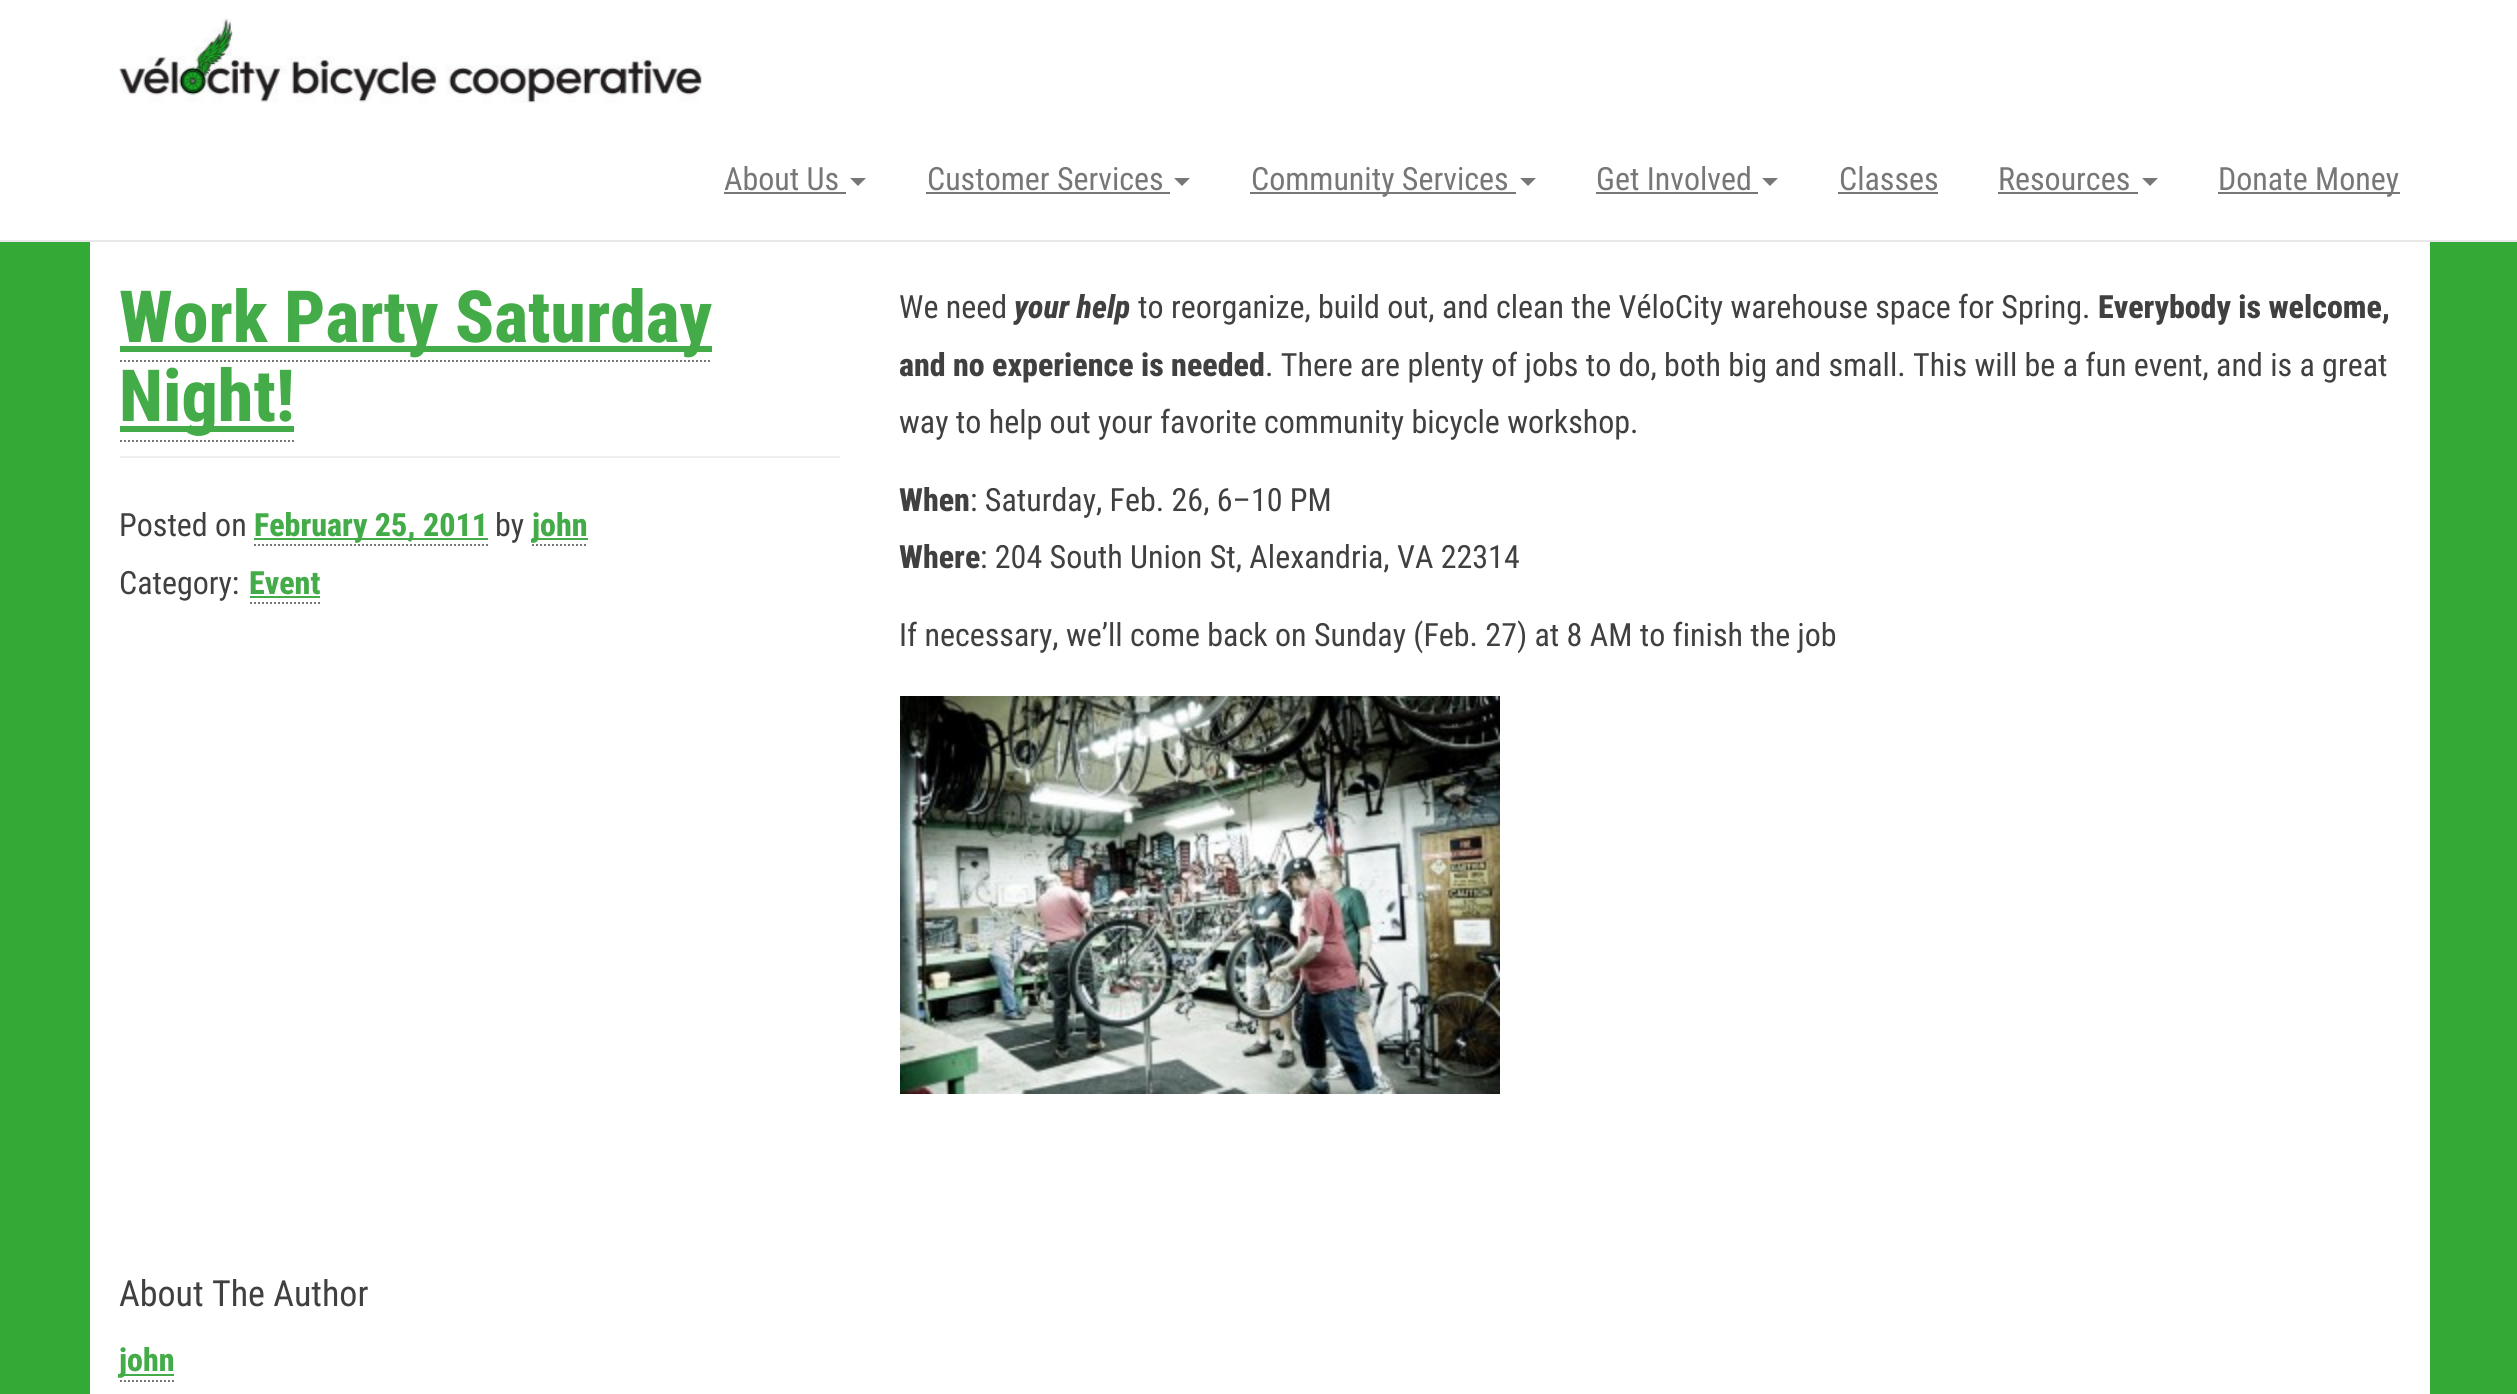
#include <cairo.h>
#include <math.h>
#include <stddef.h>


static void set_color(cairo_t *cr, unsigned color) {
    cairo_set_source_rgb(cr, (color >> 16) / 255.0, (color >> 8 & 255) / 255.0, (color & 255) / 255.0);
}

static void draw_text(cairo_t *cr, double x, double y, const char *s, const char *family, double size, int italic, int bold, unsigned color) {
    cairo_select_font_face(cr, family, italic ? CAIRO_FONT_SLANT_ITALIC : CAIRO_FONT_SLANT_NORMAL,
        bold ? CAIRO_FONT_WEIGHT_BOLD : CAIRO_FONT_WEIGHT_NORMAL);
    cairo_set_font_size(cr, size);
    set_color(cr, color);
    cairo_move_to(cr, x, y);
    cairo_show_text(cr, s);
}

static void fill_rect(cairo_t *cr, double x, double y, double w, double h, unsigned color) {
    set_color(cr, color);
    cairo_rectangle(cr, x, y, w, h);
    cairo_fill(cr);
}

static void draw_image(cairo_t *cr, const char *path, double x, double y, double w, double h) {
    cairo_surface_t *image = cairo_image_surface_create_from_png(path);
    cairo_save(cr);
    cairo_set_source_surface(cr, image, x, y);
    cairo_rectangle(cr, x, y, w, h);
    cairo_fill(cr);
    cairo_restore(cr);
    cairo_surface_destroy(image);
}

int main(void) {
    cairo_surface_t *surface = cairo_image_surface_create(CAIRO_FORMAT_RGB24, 2517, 1394);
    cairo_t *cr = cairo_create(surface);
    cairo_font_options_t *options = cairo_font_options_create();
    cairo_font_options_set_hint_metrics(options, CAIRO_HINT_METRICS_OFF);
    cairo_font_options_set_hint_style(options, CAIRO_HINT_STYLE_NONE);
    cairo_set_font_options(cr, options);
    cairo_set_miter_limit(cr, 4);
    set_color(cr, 0x34AA36);
    cairo_paint(cr);
    fill_rect(cr, 0, 0, 2517, 240, 0xFFFFFF);
    fill_rect(cr, 0, 240, 2517, 2, 0xE7E7E7);
    draw_image(cr, "assets/img1.png", 119, 18, 583, 85);
    draw_text(cr, 724, 190, "About Us", "Roboto Condensed", 32, 0, 0, 0x777777);
    fill_rect(cr, 724, 192, 122, 2, 0x777777);
    cairo_new_path(cr);
    cairo_move_to(cr, 850, 178);
    cairo_line_to(cr, 866, 178);
    cairo_line_to(cr, 858, 186);
    cairo_close_path(cr);
    cairo_fill(cr);
    draw_text(cr, 927, 190, "Customer Services", "Roboto Condensed", 32, 0, 0, 0x777777);
    fill_rect(cr, 926, 192, 244, 2, 0x777777);
    cairo_new_path(cr);
    cairo_move_to(cr, 1174, 178);
    cairo_line_to(cr, 1190, 178);
    cairo_line_to(cr, 1182, 186);
    cairo_close_path(cr);
    cairo_fill(cr);
    fill_rect(cr, 1250, 192, 266, 2, 0x777777);
    draw_text(cr, 1251, 190, "Community Services", "Roboto Condensed", 32, 0, 0, 0x777777);
    cairo_new_path(cr);
    cairo_move_to(cr, 1520, 178);
    cairo_line_to(cr, 1536, 178);
    cairo_line_to(cr, 1528, 186);
    cairo_close_path(cr);
    cairo_fill(cr);
    draw_text(cr, 1596, 190, "Get Involved", "Roboto Condensed", 32, 0, 0, 0x777777);
    fill_rect(cr, 1596, 192, 162, 2, 0x777777);
    cairo_new_path(cr);
    cairo_move_to(cr, 1762, 178);
    cairo_line_to(cr, 1778, 178);
    cairo_line_to(cr, 1770, 186);
    cairo_close_path(cr);
    cairo_fill(cr);
    draw_text(cr, 1839, 190, "Classes", "Roboto Condensed", 32, 0, 0, 0x777777);
    fill_rect(cr, 1838, 192, 100, 2, 0x777777);
    draw_text(cr, 1998, 190, "Resources", "Roboto Condensed", 32, 0, 0, 0x777777);
    fill_rect(cr, 1998, 192, 140, 2, 0x777777);
    cairo_new_path(cr);
    cairo_move_to(cr, 2142, 178);
    cairo_line_to(cr, 2158, 178);
    cairo_line_to(cr, 2150, 186);
    cairo_close_path(cr);
    cairo_fill(cr);
    fill_rect(cr, 2218, 192, 182, 2, 0x777777);
    draw_text(cr, 2218, 190, "Donate Money", "Roboto Condensed", 32, 0, 0, 0x777777);
    fill_rect(cr, 90, 242, 2340, 1152, 0xFFFFFF);
    fill_rect(cr, 120, 456, 720, 2, 0xEEEEEE);
    fill_rect(cr, 120, 346, 592, 6, 0x43AC48);
    draw_text(cr, 119, 342, "Work Party Saturday", "Roboto Condensed ExtraBold", 72, 0, 0, 0x43AC48);
    cairo_new_path(cr);
    cairo_move_to(cr, 120, 361);
    cairo_line_to(cr, 712, 361);
    set_color(cr, 0x777777);
    cairo_set_dash(cr, (double[]){2, 2}, 2, 0);
    cairo_stroke(cr);
    fill_rect(cr, 120, 426, 174, 6, 0x43AC48);
    draw_text(cr, 119, 421, "Night!", "Roboto Condensed ExtraBold", 72, 0, 0, 0x43AC48);
    cairo_new_path(cr);
    cairo_move_to(cr, 120, 441);
    cairo_line_to(cr, 294, 441);
    set_color(cr, 0x777777);
    cairo_stroke(cr);
    draw_text(cr, 119, 536, "Posted on", "Roboto Condensed", 32, 0, 0, 0x404040);
    fill_rect(cr, 254, 538, 234, 2, 0x43AC48);
    draw_text(cr, 254, 536, "February 25, 2011", "Roboto Condensed ExtraBold", 32, 0, 0, 0x43AC48);
    cairo_new_path(cr);
    cairo_move_to(cr, 254, 545);
    cairo_line_to(cr, 488, 545);
    set_color(cr, 0x777777);
    cairo_stroke(cr);
    draw_text(cr, 495, 536, "by", "Roboto Condensed", 32, 0, 0, 0x404040);
    fill_rect(cr, 532, 538, 56, 2, 0x43AC48);
    draw_text(cr, 532, 536, "john", "Roboto Condensed ExtraBold", 32, 0, 0, 0x43AC48);
    cairo_new_path(cr);
    cairo_move_to(cr, 532, 545);
    cairo_line_to(cr, 588, 545);
    set_color(cr, 0x777777);
    cairo_stroke(cr);
    draw_text(cr, 119, 594, "Category:", "Roboto Condensed", 32, 0, 0, 0x404040);
    draw_text(cr, 249, 594, "Event", "Roboto Condensed ExtraBold", 32, 0, 0, 0x43AC48);
    cairo_new_path(cr);
    cairo_move_to(cr, 250, 603);
    cairo_line_to(cr, 320, 603);
    set_color(cr, 0x777777);
    cairo_stroke(cr);
    fill_rect(cr, 250, 596, 70, 2, 0x43AC48);
    draw_text(cr, 899, 318, "We need", "Roboto Condensed", 32, 0, 0, 0x404040);
    draw_text(cr, 1014, 318, "your help", "Roboto Condensed ExtraBold", 32, 1, 0, 0x404040);
    draw_text(cr, 1138, 318, "to reorganize, build out, and clean the VéloCity warehouse space for Spring.", "Roboto Condensed", 32, 0, 0, 0x404040);
    draw_text(cr, 2098, 318, "Everybody is welcome,", "Roboto Condensed ExtraBold", 32, 0, 0, 0x404040);
    draw_text(cr, 899, 376, "and no experience is needed", "Roboto Condensed ExtraBold", 32, 0, 0, 0x404040);
    draw_text(cr, 1265, 376, ". There are plenty of jobs to do, both big and small. This will be a fun event, and is a great", "Roboto Condensed", 32, 0, 0, 0x404040);
    draw_text(cr, 899, 433, "way to help out your favorite community bicycle workshop.", "Roboto Condensed", 32, 0, 0, 0x404040);
    draw_text(cr, 899, 511, "When", "Roboto Condensed ExtraBold", 32, 0, 0, 0x404040);
    draw_text(cr, 970, 511, ": Saturday, Feb. 26, 6–10 PM", "Roboto Condensed", 32, 0, 0, 0x404040);
    draw_text(cr, 899, 568, "Where", "Roboto Condensed ExtraBold", 32, 0, 0, 0x404040);
    draw_text(cr, 980, 568, ": 204 South Union St, Alexandria, VA 22314", "Roboto Condensed", 32, 0, 0, 0x404040);
    draw_text(cr, 899, 646, "If necessary, we’ll come back on Sunday (Feb. 27) at 8 AM to finish the job", "Roboto Condensed", 32, 0, 0, 0x404040);
    draw_image(cr, "assets/img2.png", 900, 696, 600, 398);
    draw_text(cr, 119, 1306, "About The Author", "Roboto Condensed", 36, 0, 0, 0x404040);
    fill_rect(cr, 120, 1374, 54, 2, 0x43AC48);
    draw_text(cr, 119, 1371, "john", "Roboto Condensed ExtraBold", 32, 0, 0, 0x43AC48);
    cairo_new_path(cr);
    cairo_move_to(cr, 120, 1381);
    cairo_line_to(cr, 174, 1381);
    set_color(cr, 0x777777);
    cairo_stroke(cr);
    cairo_surface_write_to_png(surface, "output.png");
    cairo_font_options_destroy(options);
    cairo_destroy(cr);
    cairo_surface_destroy(surface);
    return 0;
}
